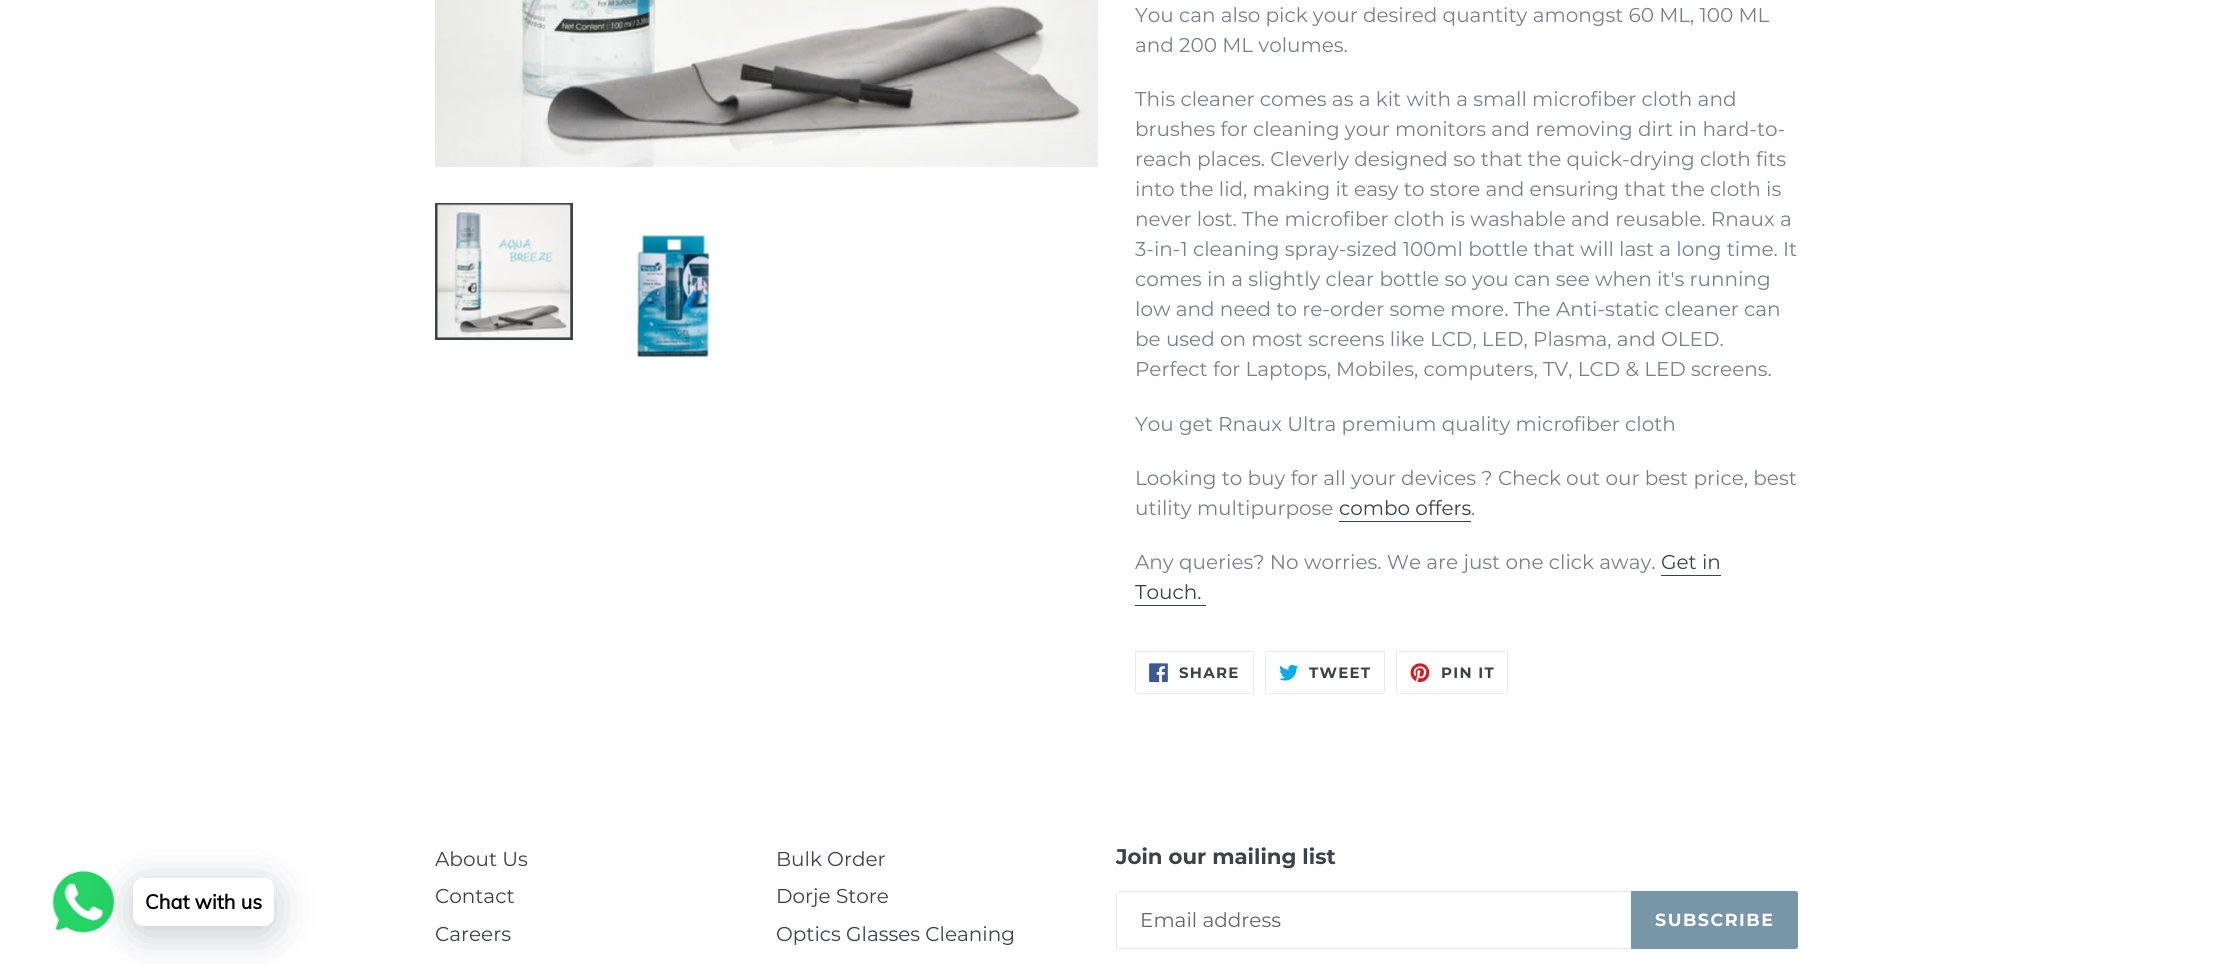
#include <cairo.h>
#include <math.h>
#include <stddef.h>


static void set_color(cairo_t *cr, unsigned color) {
    cairo_set_source_rgb(cr, (color >> 16) / 255.0, (color >> 8 & 255) / 255.0, (color & 255) / 255.0);
}

static void draw_text(cairo_t *cr, double x, double y, const char *s, const char *family, double size, int italic, int bold, unsigned color) {
    cairo_select_font_face(cr, family, italic ? CAIRO_FONT_SLANT_ITALIC : CAIRO_FONT_SLANT_NORMAL,
        bold ? CAIRO_FONT_WEIGHT_BOLD : CAIRO_FONT_WEIGHT_NORMAL);
    cairo_set_font_size(cr, size);
    set_color(cr, color);
    cairo_move_to(cr, x, y);
    cairo_show_text(cr, s);
}

static void draw_spaced(cairo_t *cr, double x, double y, const char *s, double letter, double word) {
    cairo_move_to(cr, x, y);
    while (*s) {
        char ch[5] = {0};
        int n = 0;
        do ch[n++] = *s++; while ((*s & 0xC0) == 0x80);
        cairo_show_text(cr, ch);
        cairo_rel_move_to(cr, letter + word * (*ch == ' '), 0);
    }
}

static void fill_rect(cairo_t *cr, double x, double y, double w, double h, unsigned color) {
    set_color(cr, color);
    cairo_rectangle(cr, x, y, w, h);
    cairo_fill(cr);
}

static void rounded_rect(cairo_t *cr, double x, double y, double w, double h, double r) {
    cairo_new_sub_path(cr);
    cairo_arc(cr, x + w - r, y + h - r, r, 0, M_PI / 2);
    cairo_arc(cr, x + r, y + h - r, r, M_PI / 2, M_PI);
    cairo_arc(cr, x + r, y + r, r, M_PI, 1.5 * M_PI);
    cairo_arc(cr, x + w - r, y + r, r, 1.5 * M_PI, 2 * M_PI);
    cairo_close_path(cr);
}

static void draw_shadow(cairo_t *cr, double x, double y, double w, double h, double r, double blur, double alpha) {
    cairo_push_group_with_content(cr, CAIRO_CONTENT_ALPHA);
    cairo_set_operator(cr, CAIRO_OPERATOR_SOURCE);
    for (int i = 15; i >= -15 && fmin(w, h) + blur * i / 3 > 0; i -= 2) {
        double e = blur * i / 6;
        cairo_set_source_rgba(cr, 0, 0, 0, alpha * erfc((i - 1) / 8.5) / 2);
        rounded_rect(cr, x - e, y - e, w + 2 * e, h + 2 * e, fmax(0, fmin(r + e + blur * .6, fmin(w, h) / 2 + e)));
        cairo_fill(cr);
    }
    cairo_pattern_t *soft = cairo_pop_group(cr);
    cairo_mask(cr, soft);
    cairo_pattern_destroy(soft);
}

static void draw_image(cairo_t *cr, const char *path, double x, double y, double w, double h) {
    cairo_surface_t *image = cairo_image_surface_create_from_png(path);
    cairo_save(cr);
    cairo_set_source_surface(cr, image, x, y);
    cairo_rectangle(cr, x, y, w, h);
    cairo_fill(cr);
    cairo_restore(cr);
    cairo_surface_destroy(image);
}

int main(void) {
    cairo_surface_t *surface = cairo_image_surface_create(CAIRO_FORMAT_RGB24, 2232, 964);
    cairo_t *cr = cairo_create(surface);
    cairo_font_options_t *options = cairo_font_options_create();
    cairo_font_options_set_hint_metrics(options, CAIRO_HINT_METRICS_OFF);
    cairo_font_options_set_hint_style(options, CAIRO_HINT_STYLE_NONE);
    cairo_set_font_options(cr, options);
    cairo_set_miter_limit(cr, 4);
    set_color(cr, 0xFFFFFF);
    cairo_paint(cr);
    draw_image(cr, "assets/img1.png", 52, 871, 63, 62);
    set_color(cr, 0x00122E);
    draw_shadow(cr, 133, 885, 141, 49, 10, 20, 0.24);
    set_color(cr, 0xFFFFFF);
    rounded_rect(cr, 133, 878, 141, 48, 10);
    cairo_fill(cr);
    draw_text(cr, 145, 909, "Chat with us", "Muli", 20, 0, 1, 0x000000);
    draw_image(cr, "assets/img2.png", 435, 0, 663, 167);
    cairo_rectangle(cr, 436.5, 204.5, 135, 134);
    set_color(cr, 0x3D4246);
    cairo_set_line_width(cr, 3);
    cairo_stroke(cr);
    draw_image(cr, "assets/img3.png", 437, 204, 134, 134);
    draw_image(cr, "assets/img4.png", 636, 232, 74, 126);
    draw_text(cr, 1135, 22, "You can also pick your desired quantity amongst 60 ML, 100 ML", "Montserrat", 20, 0, 0, 0x788188);
    draw_text(cr, 1135, 52, "and 200 ML volumes.", "Montserrat", 20, 0, 0, 0x788188);
    draw_text(cr, 1135, 106, "This cleaner comes as a kit with a small microfiber cloth and", "Montserrat", 20, 0, 0, 0x788188);
    draw_text(cr, 1135, 136, "brushes for cleaning your monitors and removing dirt in hard-to-", "Montserrat", 20, 0, 0, 0x788188);
    draw_text(cr, 1135, 166, "reach places. Cleverly designed so that the quick-drying cloth fits", "Montserrat", 20, 0, 0, 0x788188);
    draw_text(cr, 1135, 196, "into the lid, making it easy to store and ensuring that the cloth is", "Montserrat", 20, 0, 0, 0x788188);
    draw_text(cr, 1135, 226, "never lost. The microfiber cloth is washable and reusable. Rnaux a", "Montserrat", 20, 0, 0, 0x788188);
    draw_text(cr, 1135, 256, "3-in-1 cleaning spray-sized 100ml bottle that will last a long time. It", "Montserrat", 20, 0, 0, 0x788188);
    draw_text(cr, 1135, 286, "comes in a slightly clear bottle so you can see when it's running", "Montserrat", 20, 0, 0, 0x788188);
    draw_text(cr, 1135, 316, "low and need to re-order some more. The Anti-static cleaner can", "Montserrat", 20, 0, 0, 0x788188);
    draw_text(cr, 1135, 346, "be used on most screens like LCD, LED, Plasma, and OLED.", "Montserrat", 20, 0, 0, 0x788188);
    draw_text(cr, 1135, 376, "Perfect for Laptops, Mobiles, computers, TV, LCD & LED screens.", "Montserrat", 20, 0, 0, 0x788188);
    draw_text(cr, 1135, 431, "You get Rnaux Ultra premium quality microfiber cloth", "Montserrat", 20, 0, 0, 0x788188);
    draw_text(cr, 1135, 485, "Looking to buy for all your devices ? Check out our best price, best", "Montserrat", 20, 0, 0, 0x788188);
    draw_text(cr, 1135, 515, "utility multipurpose", "Montserrat", 20, 0, 0, 0x788188);
    draw_text(cr, 1339, 515, "combo offers", "Montserrat", 20, 0, 0, 0x3D4246);
    fill_rect(cr, 1339, 521, 132, 1, 0x3D4246);
    draw_text(cr, 1471, 515, ".", "Montserrat", 20, 0, 0, 0x788188);
    draw_text(cr, 1135, 569, "Any queries? No worries. We are just one click away.", "Montserrat", 20, 0, 0, 0x788188);
    draw_text(cr, 1661, 569, "Get in", "Montserrat", 20, 0, 0, 0x3D4246);
    fill_rect(cr, 1661, 575, 60, 1, 0x3D4246);
    draw_text(cr, 1135, 599, "Touch.", "Montserrat", 20, 0, 0, 0x3D4246);
    fill_rect(cr, 1135, 605, 71, 1, 0x3D4246);
    rounded_rect(cr, 1135.5, 651.5, 118, 42, 2);
    set_color(cr, 0xE8E9EB);
    cairo_set_line_width(cr, 1);
    cairo_stroke(cr);
    draw_image(cr, "assets/img5.png", 1149, 663, 19, 20);
    cairo_select_font_face(cr, "Montserrat", CAIRO_FONT_SLANT_NORMAL, CAIRO_FONT_WEIGHT_BOLD);
    cairo_set_font_size(cr, 15);
    set_color(cr, 0x3D4246);
    draw_spaced(cr, 1179, 678, "SHARE", 1.25, 0);
    rounded_rect(cr, 1265.5, 651.5, 119, 42, 2);
    set_color(cr, 0xE8E9EB);
    cairo_stroke(cr);
    draw_image(cr, "assets/img6.png", 1279, 664, 20, 17);
    set_color(cr, 0x3D4246);
    draw_spaced(cr, 1309, 678, "TWEET", 1.25, 0);
    rounded_rect(cr, 1396.5, 651.5, 111, 42, 2);
    set_color(cr, 0xE8E9EB);
    cairo_stroke(cr);
    draw_image(cr, "assets/img7.png", 1410, 663, 20, 19);
    set_color(cr, 0x3D4246);
    draw_spaced(cr, 1441, 678, "PIN IT", 1.25, 0);
    draw_text(cr, 435, 866, "About Us", "Montserrat", 20, 0, 0, 0x3D4246);
    draw_text(cr, 435, 903, "Contact", "Montserrat", 20, 0, 0, 0x3D4246);
    draw_text(cr, 435, 941, "Careers", "Montserrat", 20, 0, 0, 0x3D4246);
    draw_text(cr, 776, 866, "Bulk Order", "Montserrat", 20, 0, 0, 0x3D4246);
    draw_text(cr, 776, 903, "Dorje Store", "Montserrat", 20, 0, 0, 0x3D4246);
    draw_text(cr, 776, 941, "Optics Glasses Cleaning", "Montserrat", 20, 0, 0, 0x3D4246);
    draw_text(cr, 1116, 864, "Join our mailing list", "Montserrat", 21.25, 0, 1, 0x3D4246);
    fill_rect(cr, 1118, 891, 513, 1, 0xE8E9EB);
    fill_rect(cr, 1118, 948, 513, 1, 0xE8E9EB);
    fill_rect(cr, 1116, 893, 1, 55, 0xE8E9EB);
    draw_text(cr, 1140, 927, "Email address", "Montserrat", 20, 0, 0, 0x666666);
    set_color(cr, 0x7796A8);
    cairo_new_path(cr);
    cairo_move_to(cr, 1631, 891);
    cairo_line_to(cr, 1795.5, 891);
    cairo_curve_to(cr, 1797, 891, 1798, 892, 1798, 893.5);
    cairo_line_to(cr, 1798, 946.5);
    cairo_curve_to(cr, 1798, 948, 1797, 949, 1795.5, 949);
    cairo_line_to(cr, 1631, 949);
    cairo_close_path(cr);
    cairo_fill(cr);
    cairo_select_font_face(cr, "Montserrat", CAIRO_FONT_SLANT_NORMAL, CAIRO_FONT_WEIGHT_BOLD);
    cairo_set_font_size(cr, 17.5);
    set_color(cr, 0xFFFFFF);
    draw_spaced(cr, 1655, 926, "SUBSCRIBE", 1.5, 0);
    cairo_surface_write_to_png(surface, "output.png");
    cairo_font_options_destroy(options);
    cairo_destroy(cr);
    cairo_surface_destroy(surface);
    return 0;
}
